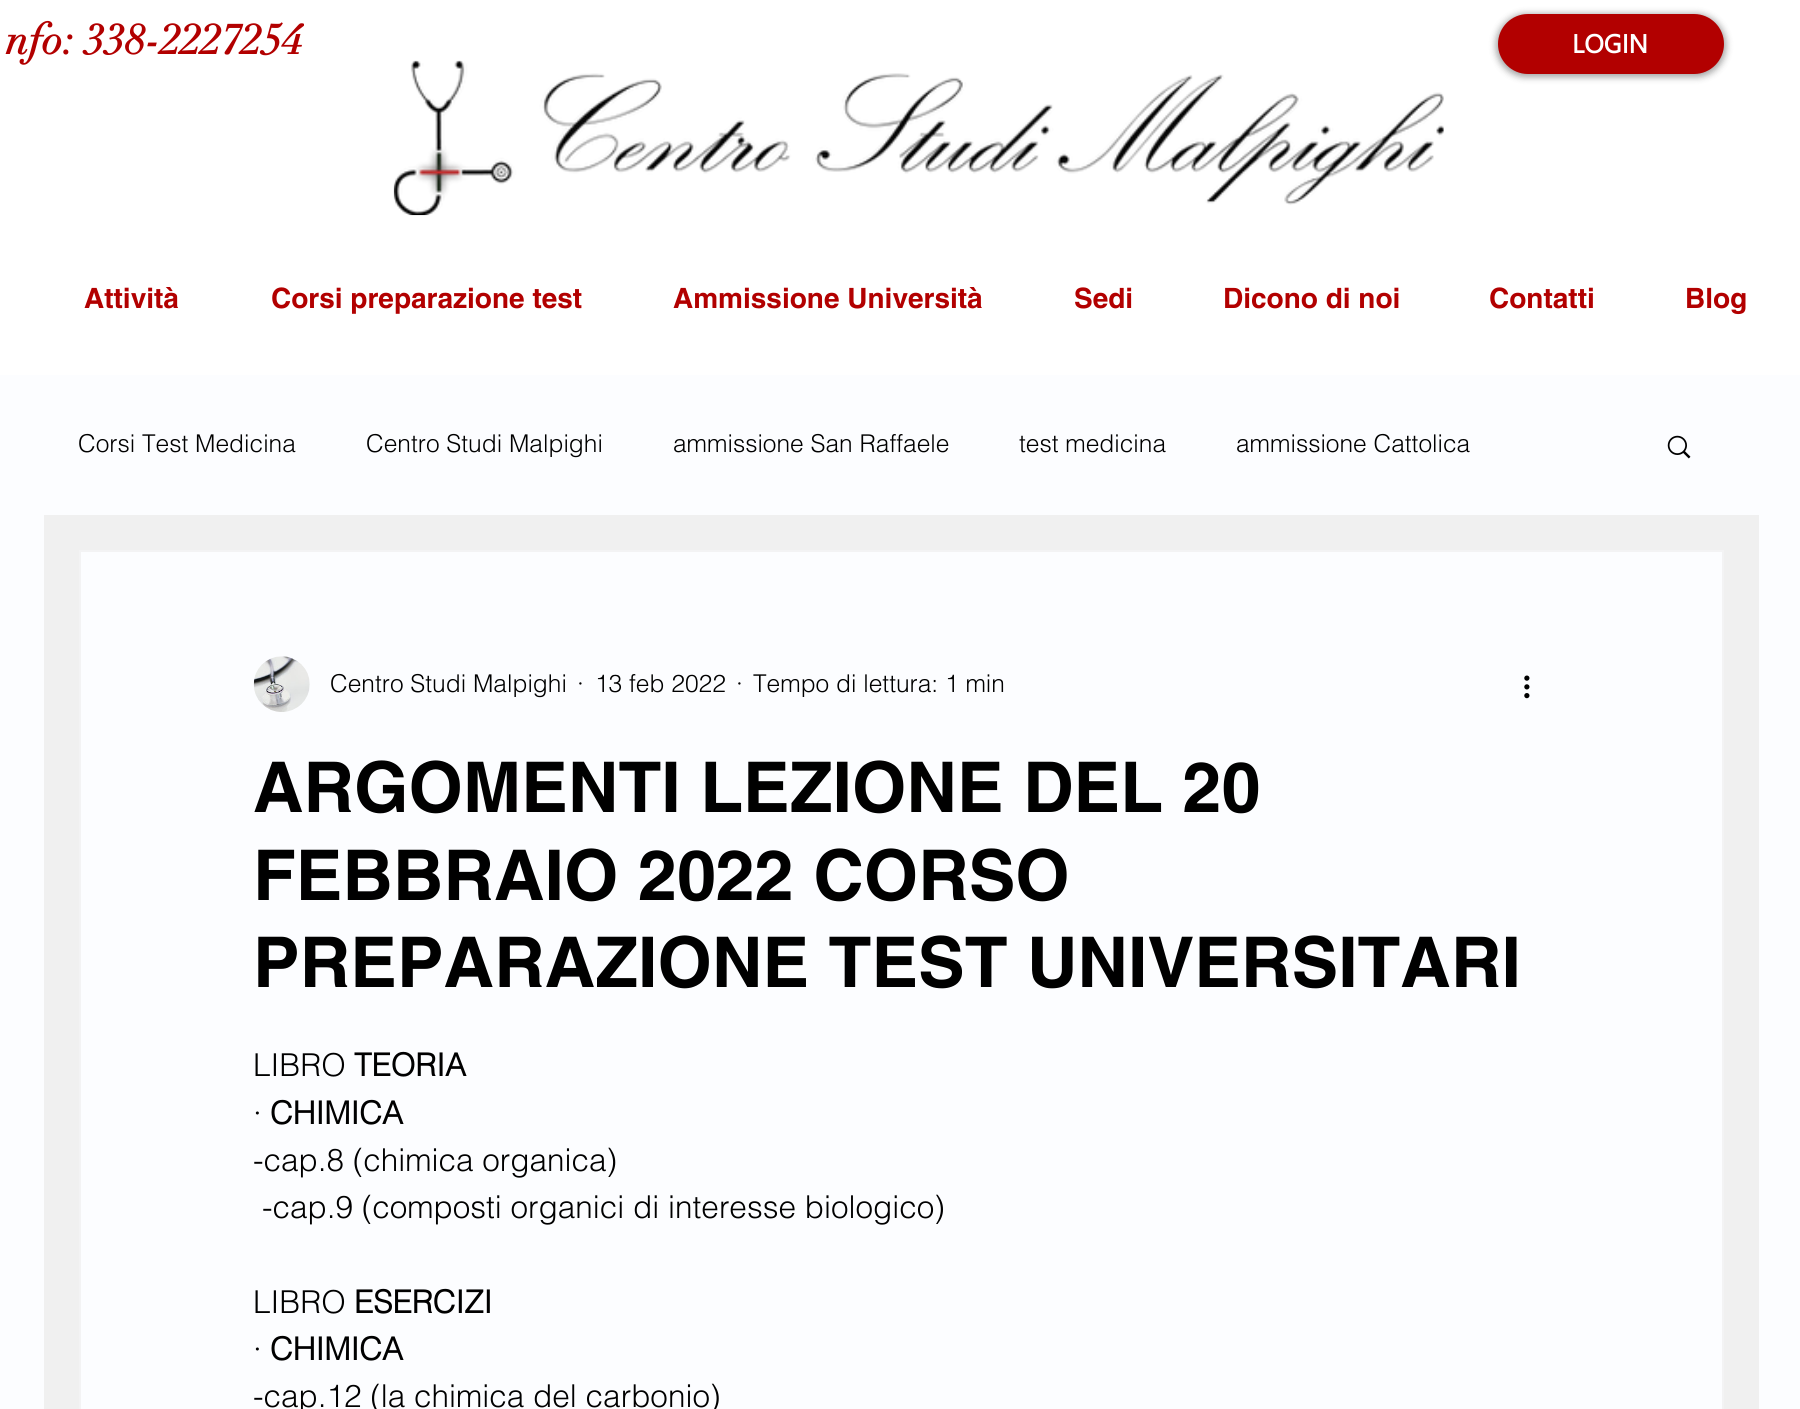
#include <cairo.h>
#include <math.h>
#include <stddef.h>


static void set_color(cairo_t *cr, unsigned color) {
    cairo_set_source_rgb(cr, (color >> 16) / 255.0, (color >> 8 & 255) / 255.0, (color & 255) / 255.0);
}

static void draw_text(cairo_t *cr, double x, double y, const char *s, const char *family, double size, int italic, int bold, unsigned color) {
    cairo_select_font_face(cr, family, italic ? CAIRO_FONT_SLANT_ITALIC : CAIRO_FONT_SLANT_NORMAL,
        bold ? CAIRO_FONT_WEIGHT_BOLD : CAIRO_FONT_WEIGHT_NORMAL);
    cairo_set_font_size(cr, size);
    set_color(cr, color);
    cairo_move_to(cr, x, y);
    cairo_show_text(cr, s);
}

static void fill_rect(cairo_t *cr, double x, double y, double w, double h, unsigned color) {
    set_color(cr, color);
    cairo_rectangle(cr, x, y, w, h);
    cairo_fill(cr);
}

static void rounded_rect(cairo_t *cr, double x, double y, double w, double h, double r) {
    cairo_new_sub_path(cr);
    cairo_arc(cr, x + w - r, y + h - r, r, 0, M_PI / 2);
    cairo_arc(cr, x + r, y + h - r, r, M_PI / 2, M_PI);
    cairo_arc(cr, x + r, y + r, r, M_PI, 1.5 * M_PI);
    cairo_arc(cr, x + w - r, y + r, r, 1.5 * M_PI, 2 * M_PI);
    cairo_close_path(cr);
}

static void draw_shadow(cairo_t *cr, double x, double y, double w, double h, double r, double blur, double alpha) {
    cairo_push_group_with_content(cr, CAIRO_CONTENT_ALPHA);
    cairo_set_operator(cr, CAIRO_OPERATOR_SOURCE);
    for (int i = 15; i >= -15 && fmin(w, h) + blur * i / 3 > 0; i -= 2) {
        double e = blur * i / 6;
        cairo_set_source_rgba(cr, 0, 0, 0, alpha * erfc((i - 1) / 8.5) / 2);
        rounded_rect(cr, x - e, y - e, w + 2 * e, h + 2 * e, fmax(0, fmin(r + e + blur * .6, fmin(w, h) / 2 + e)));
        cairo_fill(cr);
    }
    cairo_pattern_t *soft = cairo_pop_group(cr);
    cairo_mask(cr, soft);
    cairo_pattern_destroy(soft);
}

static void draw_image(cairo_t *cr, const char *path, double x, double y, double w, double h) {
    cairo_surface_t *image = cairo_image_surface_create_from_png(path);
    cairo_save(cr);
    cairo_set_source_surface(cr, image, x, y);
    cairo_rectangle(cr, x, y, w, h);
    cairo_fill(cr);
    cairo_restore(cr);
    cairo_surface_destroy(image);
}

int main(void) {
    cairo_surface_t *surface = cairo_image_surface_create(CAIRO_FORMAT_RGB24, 1800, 1409);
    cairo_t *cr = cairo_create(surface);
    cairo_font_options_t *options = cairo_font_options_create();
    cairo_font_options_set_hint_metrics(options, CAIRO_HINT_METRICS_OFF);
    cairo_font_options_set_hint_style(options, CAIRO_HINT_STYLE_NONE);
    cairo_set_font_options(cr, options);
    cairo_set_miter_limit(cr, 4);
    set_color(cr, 0xFCFDFF);
    cairo_paint(cr);
    fill_rect(cr, 0, 0, 1800, 375, 0xFFFFFF);
    draw_text(cr, 6, 54, "nfo: 338-2227254", "didot", 42, 0, 1, 0xB20000);
    set_color(cr, 0x000000);
    draw_shadow(cr, 1496, 14, 230, 63, 31.5, 3.5, 0.37);
    set_color(cr, 0xB20000);
    rounded_rect(cr, 1498, 14, 226, 60, 30);
    cairo_fill(cr);
    draw_text(cr, 1572, 53, "LOGIN", "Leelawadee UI", 26, 0, 1, 0xFFFFFF);
    draw_image(cr, "assets/img1.png", 393, 60, 1051, 156);
    draw_text(cr, 84, 308, "Attività", "helvetica", 28, 0, 1, 0xB20000);
    draw_text(cr, 271, 308, "Corsi preparazione test", "helvetica", 28, 0, 1, 0xB20000);
    draw_text(cr, 673, 308, "Ammissione Università", "helvetica", 28, 0, 1, 0xB20000);
    draw_text(cr, 1074, 308, "Sedi", "helvetica", 28, 0, 1, 0xB20000);
    draw_text(cr, 1223, 308, "Dicono di noi", "helvetica", 28, 0, 1, 0xB20000);
    draw_text(cr, 1489, 308, "Contatti", "helvetica", 28, 0, 1, 0xB20000);
    draw_text(cr, 1685, 308, "Blog", "helvetica", 28, 0, 1, 0xB20000);
    fill_rect(cr, 44, 515, 1715, 894, 0xF0F0F0);
    draw_text(cr, 78, 452, "Corsi Test Medicina", "helvetica Light", 24.5, 0, 0, 0x000000);
    draw_text(cr, 366, 452, "Centro Studi Malpighi", "helvetica Light", 24.5, 0, 0, 0x000000);
    draw_text(cr, 673, 452, "ammissione San Raffaele", "helvetica Light", 24.5, 0, 0, 0x000000);
    draw_text(cr, 1019, 452, "test medicina", "helvetica Light", 24.5, 0, 0, 0x000000);
    draw_text(cr, 1236, 452, "ammissione Cattolica", "helvetica Light", 24.5, 0, 0, 0x000000);
    draw_image(cr, "assets/img2.png", 1667, 435, 24, 24);
    set_color(cr, 0xFCFDFF);
    cairo_rectangle(cr, 80, 551, 1643, 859);
    cairo_fill_preserve(cr);
    set_color(cr, 0xF3F3F4);
    cairo_stroke(cr);
    draw_image(cr, "assets/img3.png", 253, 656, 57, 56);
    draw_text(cr, 330, 692, "Centro Studi Malpighi", "helvetica Light", 24.5, 0, 0, 0x000000);
    draw_text(cr, 577, 692, "·", "helvetica Light", 24.5, 0, 0, 0x000000);
    draw_text(cr, 595, 692, "13 feb 2022", "helvetica Light", 24.5, 0, 0, 0x000000);
    draw_text(cr, 736, 692, "·", "helvetica Light", 24.5, 0, 0, 0x000000);
    draw_text(cr, 753, 692, "Tempo di lettura: 1 min", "helvetica Light", 24.5, 0, 0, 0x000000);
    draw_image(cr, "assets/img4.png", 1524, 675, 6, 24);
    draw_text(cr, 253, 812, "ARGOMENTI LEZIONE DEL 20", "helvetica", 70, 0, 1, 0x000000);
    draw_text(cr, 253, 900, "FEBBRAIO 2022 CORSO", "helvetica", 70, 0, 1, 0x000000);
    draw_text(cr, 253, 987, "PREPARAZIONE TEST UNIVERSITARI", "helvetica", 70, 0, 1, 0x000000);
    draw_text(cr, 253, 1076, "LIBRO", "helvetica Light", 31.5, 0, 0, 0x000000);
    draw_text(cr, 354, 1076, "TEORIA", "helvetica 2", 31.5, 0, 1, 0x000000);
    draw_text(cr, 253, 1124, "·", "helvetica Light", 31.5, 0, 0, 0x000000);
    draw_text(cr, 270, 1124, "CHIMICA", "helvetica 2", 31.5, 0, 1, 0x000000);
    draw_text(cr, 253, 1171, "-cap.8 (chimica organica)", "helvetica Light", 31.5, 0, 0, 0x000000);
    draw_text(cr, 262, 1218, "-cap.9 (composti organici di interesse biologico)", "helvetica Light", 31.5, 0, 0, 0x000000);
    draw_text(cr, 253, 1313, "LIBRO", "helvetica Light", 31.5, 0, 0, 0x000000);
    draw_text(cr, 354, 1313, "ESERCIZI", "helvetica 2", 31.5, 0, 1, 0x000000);
    draw_text(cr, 253, 1360, "·", "helvetica Light", 31.5, 0, 0, 0x000000);
    draw_text(cr, 270, 1360, "CHIMICA", "helvetica 2", 31.5, 0, 1, 0x000000);
    draw_text(cr, 253, 1407, "-cap.12 (la chimica del carbonio)", "helvetica Light", 31.5, 0, 0, 0x000000);
    cairo_surface_write_to_png(surface, "output.png");
    cairo_font_options_destroy(options);
    cairo_destroy(cr);
    cairo_surface_destroy(surface);
    return 0;
}
